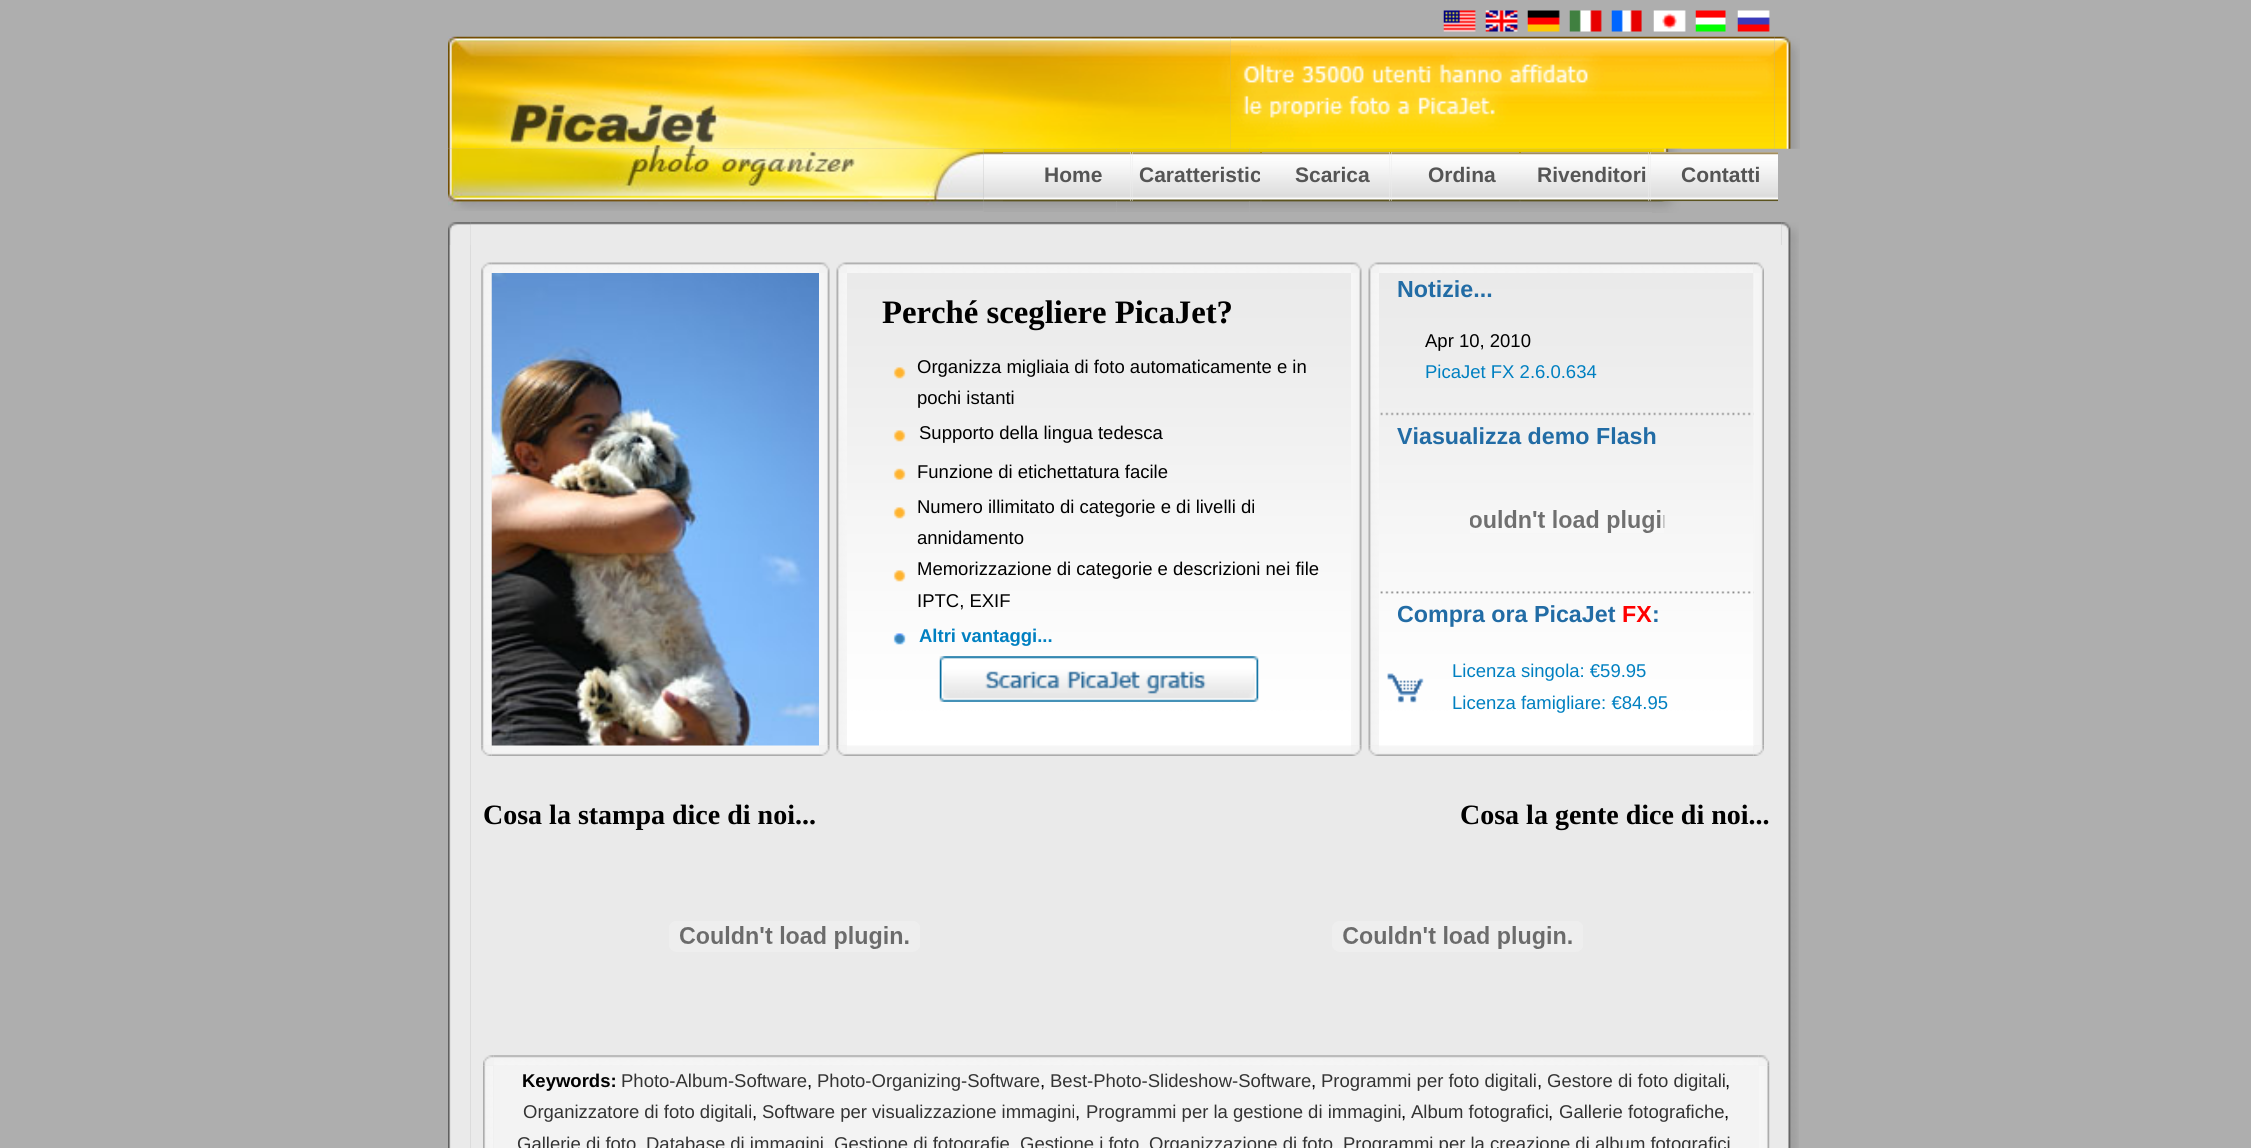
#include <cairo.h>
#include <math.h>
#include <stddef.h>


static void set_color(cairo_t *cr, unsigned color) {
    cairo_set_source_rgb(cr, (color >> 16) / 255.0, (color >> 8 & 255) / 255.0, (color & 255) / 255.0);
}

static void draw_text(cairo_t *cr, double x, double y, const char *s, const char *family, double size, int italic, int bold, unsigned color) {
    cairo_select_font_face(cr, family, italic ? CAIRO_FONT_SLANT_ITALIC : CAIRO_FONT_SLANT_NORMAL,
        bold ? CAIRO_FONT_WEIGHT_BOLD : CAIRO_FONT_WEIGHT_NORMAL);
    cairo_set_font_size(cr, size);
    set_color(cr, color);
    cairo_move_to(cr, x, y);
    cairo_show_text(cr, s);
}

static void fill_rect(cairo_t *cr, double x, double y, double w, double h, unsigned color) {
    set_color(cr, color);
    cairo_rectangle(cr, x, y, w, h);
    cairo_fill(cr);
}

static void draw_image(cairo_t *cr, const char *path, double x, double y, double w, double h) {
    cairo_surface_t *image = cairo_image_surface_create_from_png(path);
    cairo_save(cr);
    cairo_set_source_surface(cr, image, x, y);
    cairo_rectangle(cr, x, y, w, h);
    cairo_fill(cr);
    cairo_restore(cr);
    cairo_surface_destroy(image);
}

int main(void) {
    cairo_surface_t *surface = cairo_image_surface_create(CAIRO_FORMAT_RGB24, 2251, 1148);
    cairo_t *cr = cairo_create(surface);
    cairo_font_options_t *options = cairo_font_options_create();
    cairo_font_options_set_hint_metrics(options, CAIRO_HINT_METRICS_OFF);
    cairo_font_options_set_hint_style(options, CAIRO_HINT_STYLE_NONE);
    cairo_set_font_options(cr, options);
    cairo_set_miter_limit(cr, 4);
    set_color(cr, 0xAEAEAE);
    cairo_paint(cr);
    draw_image(cr, "assets/img18.png", 983, 148, 134, 64);
    draw_image(cr, "assets/img19.png", 1116, 148, 134, 64);
    fill_rect(cr, 1003, 152, 128, 49, 0xECECEC);
    draw_image(cr, "assets/img1.png", 1003, 152, 128, 50);
    draw_text(cr, 1044, 182, "Home", "Liberation Sans", 21, 0, 1, 0x555555);
    draw_image(cr, "assets/img20.png", 1249, 148, 137, 64);
    fill_rect(cr, 1132, 152, 128, 49, 0xECECEC);
    draw_image(cr, "assets/img2.png", 1132, 152, 128, 50);
    cairo_save(cr);
    cairo_rectangle(cr, 1132, 152, 128, 49);
    cairo_clip(cr);
    draw_text(cr, 1139, 182, "Caratteristic", "Liberation Sans", 21, 0, 1, 0x555555);
    cairo_restore(cr);
    draw_image(cr, "assets/img21.png", 1386, 148, 133, 64);
    fill_rect(cr, 1262, 152, 128, 49, 0xECECEC);
    draw_image(cr, "assets/img3.png", 1262, 152, 128, 50);
    draw_text(cr, 1295, 182, "Scarica", "Liberation Sans", 21, 0, 1, 0x555555);
    fill_rect(cr, 1391, 152, 128, 49, 0xECECEC);
    draw_image(cr, "assets/img4.png", 1391, 152, 128, 50);
    draw_text(cr, 1428, 182, "Ordina", "Liberation Sans", 21, 0, 1, 0x555555);
    draw_image(cr, "assets/img22.png", 1519, 148, 133, 64);
    fill_rect(cr, 1521, 152, 128, 49, 0xECECEC);
    draw_image(cr, "assets/img3.png", 1521, 152, 128, 50);
    draw_text(cr, 1537, 182, "Rivenditori", "Liberation Sans", 21, 0, 1, 0x555555);
    draw_image(cr, "assets/img14.png", 448, 36, 783, 113);
    draw_image(cr, "assets/img15.png", 1230, 36, 545, 113);
    draw_image(cr, "assets/img23.png", 1652, 148, 30, 65);
    fill_rect(cr, 1650, 152, 128, 49, 0xECECEC);
    draw_image(cr, "assets/img5.png", 1650, 152, 128, 50);
    draw_text(cr, 1681, 182, "Contatti", "Liberation Sans", 21, 0, 1, 0x555555);
    draw_image(cr, "assets/img6.png", 1443, 10, 33, 22);
    draw_image(cr, "assets/img7.png", 1485, 10, 33, 22);
    draw_image(cr, "assets/img8.png", 1527, 10, 33, 22);
    draw_image(cr, "assets/img9.png", 1569, 10, 33, 22);
    draw_image(cr, "assets/img10.png", 1611, 10, 31, 22);
    draw_image(cr, "assets/img11.png", 1653, 10, 33, 22);
    draw_image(cr, "assets/img12.png", 1695, 10, 31, 22);
    draw_image(cr, "assets/img13.png", 1737, 10, 33, 22);
    draw_image(cr, "assets/img16.png", 1774, 36, 26, 113);
    draw_image(cr, "assets/img17.png", 448, 148, 536, 63);
    draw_image(cr, "assets/img24.png", 448, 222, 23, 23);
    draw_image(cr, "assets/img25.png", 470, 222, 1312, 23);
    draw_image(cr, "assets/img26.png", 1781, 222, 18, 23);
    draw_image(cr, "assets/img27.png", 448, 245, 23, 903);
    fill_rect(cr, 471, 245, 1311, 796, 0xEAEAEA);
    draw_image(cr, "assets/img28.png", 481, 262, 11, 11);
    draw_image(cr, "assets/img29.png", 491, 262, 328, 11);
    draw_image(cr, "assets/img30.png", 819, 262, 11, 11);
    draw_image(cr, "assets/img31.png", 481, 273, 11, 473);
    fill_rect(cr, 492, 745, 327, 1, 0xF5F5F5);
    draw_image(cr, "assets/img34.png", 481, 745, 11, 11);
    draw_image(cr, "assets/img32.png", 491, 273, 328, 473);
    draw_image(cr, "assets/img33.png", 819, 273, 11, 473);
    draw_image(cr, "assets/img35.png", 492, 746, 327, 10);
    draw_image(cr, "assets/img36.png", 819, 745, 11, 11);
    draw_image(cr, "assets/img37.png", 836, 262, 11, 11);
    draw_image(cr, "assets/img38.png", 847, 262, 504, 11);
    draw_image(cr, "assets/img30.png", 1351, 262, 11, 11);
    draw_image(cr, "assets/img39.png", 836, 273, 11, 473);
    fill_rect(cr, 847, 745, 504, 1, 0xFAFAFA);
    draw_image(cr, "assets/img40.png", 847, 273, 504, 472);
    draw_text(cr, 882, 323, "Perché scegliere PicaJet?", "Liberation Serif", 32.75, 0, 1, 0x000000);
    draw_image(cr, "assets/img41.png", 893, 367, 13, 12);
    draw_text(cr, 917, 373, "Organizza migliaia di foto automaticamente e in", "Liberation Sans", 18.5, 0, 0, 0x000000);
    draw_text(cr, 917, 404, "pochi istanti", "Liberation Sans", 18.5, 0, 0, 0x000000);
    draw_image(cr, "assets/img42.png", 893, 430, 13, 12);
    draw_text(cr, 919, 439, "Supporto della lingua tedesca", "Liberation Sans", 18.5, 0, 0, 0x000000);
    draw_image(cr, "assets/img43.png", 893, 468, 13, 12);
    draw_text(cr, 917, 478, "Funzione di etichettatura facile", "Liberation Sans", 18.5, 0, 0, 0x000000);
    draw_image(cr, "assets/img44.png", 893, 507, 13, 12);
    draw_text(cr, 917, 513, "Numero illimitato di categorie e di livelli di", "Liberation Sans", 18.5, 0, 0, 0x000000);
    draw_text(cr, 917, 544, "annidamento", "Liberation Sans", 18.5, 0, 0, 0x000000);
    draw_image(cr, "assets/img45.png", 893, 570, 13, 12);
    draw_text(cr, 917, 575, "Memorizzazione di categorie e descrizioni nei file", "Liberation Sans", 18.5, 0, 0, 0x000000);
    draw_text(cr, 917, 607, "IPTC, EXIF", "Liberation Sans", 18.5, 0, 0, 0x000000);
    draw_image(cr, "assets/img46.png", 893, 633, 13, 12);
    draw_text(cr, 919, 642, "Altri vantaggi...", "Liberation Sans", 18.5, 0, 1, 0x0080C1);
    draw_image(cr, "assets/img47.png", 939, 656, 320, 46);
    draw_image(cr, "assets/img33.png", 1351, 273, 11, 473);
    draw_image(cr, "assets/img48.png", 836, 745, 11, 11);
    draw_image(cr, "assets/img49.png", 847, 746, 504, 10);
    draw_image(cr, "assets/img36.png", 1351, 745, 11, 11);
    draw_image(cr, "assets/img37.png", 1368, 262, 11, 11);
    draw_image(cr, "assets/img50.png", 1379, 262, 375, 11);
    draw_image(cr, "assets/img51.png", 1753, 262, 11, 11);
    draw_image(cr, "assets/img39.png", 1368, 273, 11, 473);
    fill_rect(cr, 1379, 273, 375, 473, 0xF5F5F5);
    draw_image(cr, "assets/img52.png", 1379, 273, 375, 473);
    draw_text(cr, 1397, 297, "Notizie...", "Liberation Sans", 23.25, 0, 1, 0x226CA5);
    draw_text(cr, 1425, 347, "Apr 10, 2010", "Liberation Sans", 18.5, 0, 0, 0x000000);
    draw_text(cr, 1425, 378, "PicaJet FX 2.6.0.634", "Liberation Sans", 18.5, 0, 0, 0x0080C1);
    draw_image(cr, "assets/img53.png", 1380, 412, 374, 4);
    draw_text(cr, 1397, 444, "Viasualizza demo Flash", "Liberation Sans", 23.25, 0, 1, 0x226CA5);
    draw_image(cr, "assets/img54.png", 1470, 510, 195, 23);
    draw_image(cr, "assets/img55.png", 1380, 591, 374, 3);
    draw_text(cr, 1397, 622, "Compra ora PicaJet", "Liberation Sans", 23.25, 0, 1, 0x226CA5);
    draw_text(cr, 1622, 622, "FX", "Liberation Sans", 23.25, 0, 1, 0xFF0000);
    draw_text(cr, 1652, 622, ":", "Liberation Sans", 23.25, 0, 1, 0x226CA5);
    draw_image(cr, "assets/img56.png", 1387, 673, 37, 30);
    draw_text(cr, 1452, 677, "Licenza singola: €59.95", "Liberation Sans", 18.5, 0, 0, 0x0080C1);
    draw_text(cr, 1452, 709, "Licenza famigliare: €84.95", "Liberation Sans", 18.5, 0, 0, 0x0080C1);
    draw_image(cr, "assets/img57.png", 1753, 273, 11, 473);
    draw_image(cr, "assets/img48.png", 1368, 745, 11, 11);
    draw_image(cr, "assets/img58.png", 1379, 746, 375, 10);
    draw_image(cr, "assets/img59.png", 1753, 745, 11, 11);
    draw_text(cr, 483, 824, "Cosa la stampa dice di noi...", "Liberation Serif", 28, 0, 1, 0x000000);
    draw_text(cr, 1460, 824, "Cosa la gente dice di noi...", "Liberation Serif", 28, 0, 1, 0x000000);
    draw_image(cr, "assets/img60.png", 669, 921, 251, 31);
    draw_image(cr, "assets/img61.png", 1332, 921, 251, 31);
    draw_image(cr, "assets/img62.png", 1781, 245, 18, 903);
    fill_rect(cr, 471, 1041, 1311, 107, 0xEAEAEA);
    draw_image(cr, "assets/img63.png", 483, 1055, 11, 11);
    draw_image(cr, "assets/img64.png", 493, 1055, 1266, 11);
    draw_image(cr, "assets/img65.png", 1758, 1055, 12, 11);
    draw_image(cr, "assets/img66.png", 483, 1066, 11, 82);
    fill_rect(cr, 494, 1066, 1265, 82, 0xF3F3F3);
    draw_text(cr, 522, 1087, "Keywords:", "Liberation Sans", 18.5, 0, 1, 0x000000);
    draw_text(cr, 621, 1087, "Photo-Album-Software", "Liberation Sans", 18.5, 0, 0, 0x333333);
    draw_text(cr, 807, 1087, ",", "Liberation Sans", 18.5, 0, 0, 0x000000);
    draw_text(cr, 817, 1087, "Photo-Organizing-Software", "Liberation Sans", 18.5, 0, 0, 0x333333);
    draw_text(cr, 1040, 1087, ",", "Liberation Sans", 18.5, 0, 0, 0x000000);
    draw_text(cr, 1050, 1087, "Best-Photo-Slideshow-Software", "Liberation Sans", 18.5, 0, 0, 0x333333);
    draw_text(cr, 1311, 1087, ",", "Liberation Sans", 18.5, 0, 0, 0x000000);
    draw_text(cr, 1321, 1087, "Programmi per foto digitali", "Liberation Sans", 18.5, 0, 0, 0x333333);
    draw_text(cr, 1537, 1087, ",", "Liberation Sans", 18.5, 0, 0, 0x000000);
    draw_text(cr, 1547, 1087, "Gestore di foto digitali", "Liberation Sans", 18.5, 0, 0, 0x333333);
    draw_text(cr, 1725, 1087, ",", "Liberation Sans", 18.5, 0, 0, 0x000000);
    draw_text(cr, 523, 1118, "Organizzatore di foto digitali", "Liberation Sans", 18.5, 0, 0, 0x333333);
    draw_text(cr, 752, 1118, ",", "Liberation Sans", 18.5, 0, 0, 0x000000);
    draw_text(cr, 762, 1118, "Software per visualizzazione immagini", "Liberation Sans", 18.5, 0, 0, 0x333333);
    draw_text(cr, 1075, 1118, ",", "Liberation Sans", 18.5, 0, 0, 0x000000);
    draw_text(cr, 1086, 1118, "Programmi per la gestione di immagini", "Liberation Sans", 18.5, 0, 0, 0x333333);
    draw_text(cr, 1401, 1118, ",", "Liberation Sans", 18.5, 0, 0, 0x000000);
    draw_text(cr, 1411, 1118, "Album fotografici", "Liberation Sans", 18.5, 0, 0, 0x333333);
    draw_text(cr, 1548, 1118, ",", "Liberation Sans", 18.5, 0, 0, 0x000000);
    draw_text(cr, 1559, 1118, "Gallerie fotografiche", "Liberation Sans", 18.5, 0, 0, 0x333333);
    draw_text(cr, 1724, 1118, ",", "Liberation Sans", 18.5, 0, 0, 0x000000);
    draw_text(cr, 517, 1150, "Gallerie di foto", "Liberation Sans", 18.5, 0, 0, 0x333333);
    draw_text(cr, 646, 1150, "Database di immagini", "Liberation Sans", 18.5, 0, 0, 0x333333);
    draw_text(cr, 834, 1150, "Gestione di fotografie", "Liberation Sans", 18.5, 0, 0, 0x333333);
    draw_text(cr, 1020, 1150, "Gestione i foto", "Liberation Sans", 18.5, 0, 0, 0x333333);
    draw_text(cr, 1149, 1150, "Organizzazione di foto", "Liberation Sans", 18.5, 0, 0, 0x333333);
    draw_text(cr, 1343, 1150, "Programmi per la creazione di album fotografici", "Liberation Sans", 18.5, 0, 0, 0x333333);
    draw_image(cr, "assets/img67.png", 1759, 1066, 11, 82);
    cairo_surface_write_to_png(surface, "output.png");
    cairo_font_options_destroy(options);
    cairo_destroy(cr);
    cairo_surface_destroy(surface);
    return 0;
}
